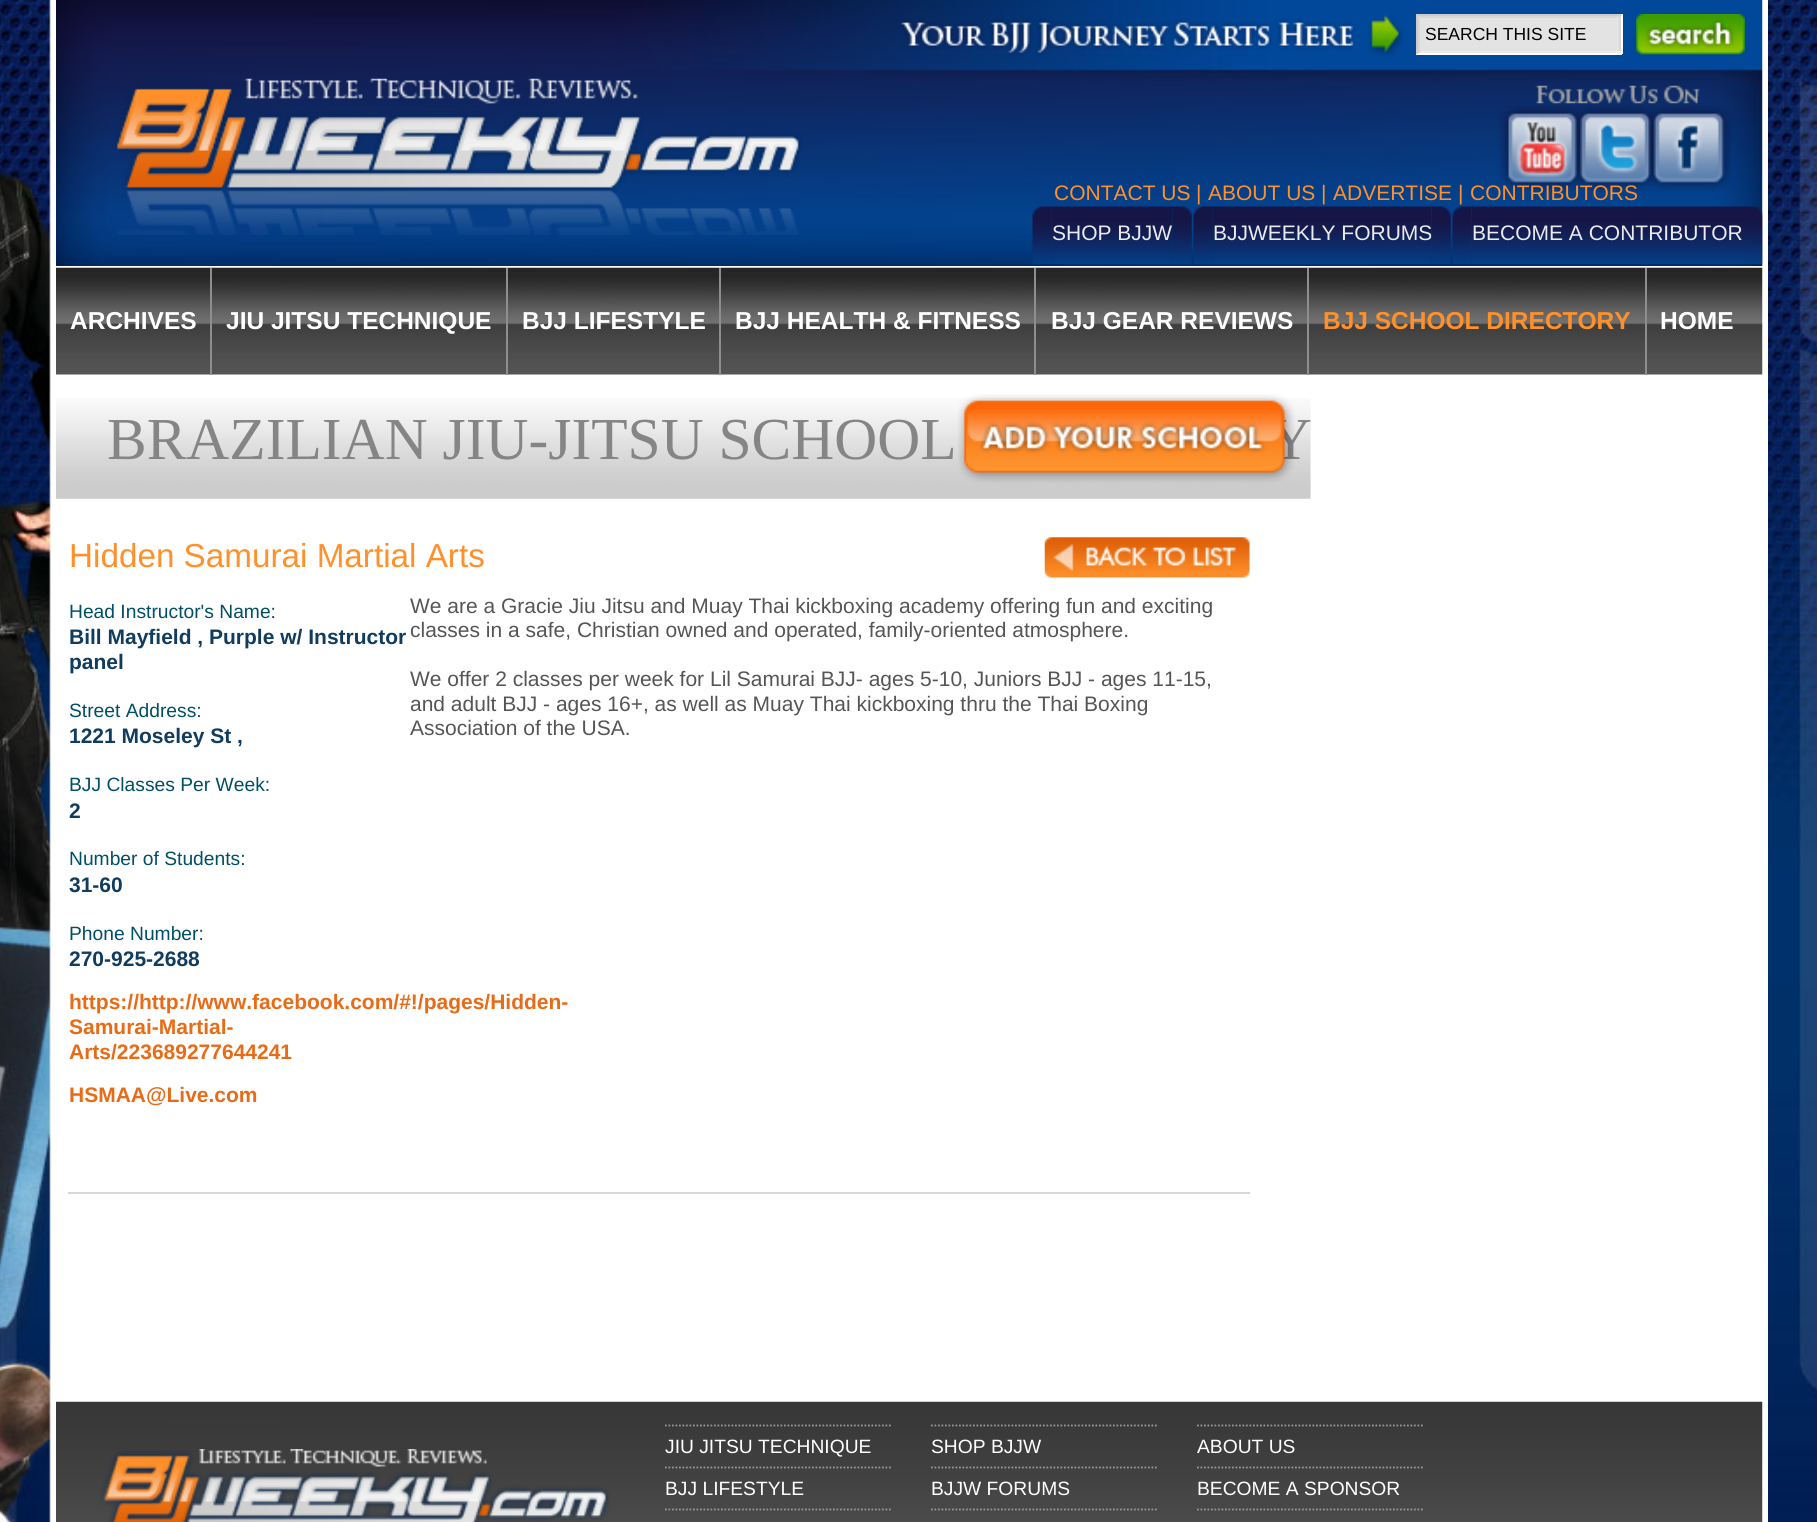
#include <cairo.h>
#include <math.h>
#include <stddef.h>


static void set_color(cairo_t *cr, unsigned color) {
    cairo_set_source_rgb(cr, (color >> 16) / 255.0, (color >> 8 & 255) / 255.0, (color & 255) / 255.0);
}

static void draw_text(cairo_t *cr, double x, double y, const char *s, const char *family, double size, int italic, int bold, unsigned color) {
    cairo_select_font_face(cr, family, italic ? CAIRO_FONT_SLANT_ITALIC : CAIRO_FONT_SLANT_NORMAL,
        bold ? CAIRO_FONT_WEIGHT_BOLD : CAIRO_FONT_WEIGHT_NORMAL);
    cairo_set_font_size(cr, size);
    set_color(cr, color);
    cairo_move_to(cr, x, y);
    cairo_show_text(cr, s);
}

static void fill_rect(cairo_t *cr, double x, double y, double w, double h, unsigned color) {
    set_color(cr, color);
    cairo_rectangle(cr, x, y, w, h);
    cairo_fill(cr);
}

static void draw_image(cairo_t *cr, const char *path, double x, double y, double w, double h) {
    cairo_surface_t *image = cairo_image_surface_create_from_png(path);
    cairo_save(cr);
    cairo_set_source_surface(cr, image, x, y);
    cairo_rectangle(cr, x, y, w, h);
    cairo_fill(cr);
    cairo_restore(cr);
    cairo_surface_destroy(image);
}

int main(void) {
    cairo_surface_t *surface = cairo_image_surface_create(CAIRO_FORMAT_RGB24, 1817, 1522);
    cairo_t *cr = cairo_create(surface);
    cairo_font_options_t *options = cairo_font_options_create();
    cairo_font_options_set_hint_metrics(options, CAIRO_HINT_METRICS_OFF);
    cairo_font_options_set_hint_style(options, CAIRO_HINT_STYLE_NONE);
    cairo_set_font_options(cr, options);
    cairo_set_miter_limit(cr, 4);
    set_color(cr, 0xFFFFFF);
    cairo_paint(cr);
    draw_image(cr, "assets/img1.png", 0, 0, 1817, 1522);
    fill_rect(cr, 51, 0, 1717, 1522, 0xFFFFFF);
    draw_image(cr, "assets/img2.png", 56, 0, 1707, 266);
    draw_image(cr, "assets/img3.png", 901, 15, 503, 42);
    fill_rect(cr, 1416, 14, 206, 2, 0xCCCCCC);
    fill_rect(cr, 1621, 14, 2, 40, 0xFFFFFF);
    fill_rect(cr, 1416, 53, 206, 2, 0xFFFFFF);
    fill_rect(cr, 1416, 14, 2, 40, 0xCCCCCC);
    fill_rect(cr, 1420, 18, 199, 33, 0xE3E3E3);
    fill_rect(cr, 1418, 16, 203, 2, 0xD8D8D8);
    fill_rect(cr, 1619, 16, 2, 37, 0xD8D8D8);
    fill_rect(cr, 1418, 51, 203, 2, 0xEAEAEA);
    fill_rect(cr, 1418, 16, 2, 37, 0xD8D8D8);
    draw_text(cr, 1425, 40, "SEARCH THIS SITE", "Liberation Sans", 17.5, 0, 0, 0x000000);
    draw_image(cr, "assets/img4.png", 1636, 14, 109, 41);
    draw_image(cr, "assets/img5.png", 115, 78, 687, 157);
    draw_image(cr, "assets/img6.png", 1535, 85, 165, 19);
    draw_image(cr, "assets/img7.png", 1498, 105, 81, 87);
    draw_image(cr, "assets/img8.png", 1578, 105, 74, 87);
    draw_image(cr, "assets/img9.png", 1652, 105, 80, 87);
    draw_text(cr, 1054, 200, "CONTACT US", "Liberation Sans", 21, 0, 0, 0xFF902A);
    draw_text(cr, 1196, 200, "|", "Liberation Sans", 21, 0, 0, 0xFF902A);
    draw_text(cr, 1208, 200, "ABOUT US", "Liberation Sans", 21, 0, 0, 0xFF902A);
    draw_text(cr, 1321, 200, "|", "Liberation Sans", 21, 0, 0, 0xFF902A);
    draw_text(cr, 1333, 200, "ADVERTISE", "Liberation Sans", 21, 0, 0, 0xFF902A);
    draw_text(cr, 1458, 200, "|", "Liberation Sans", 21, 0, 0, 0xFF902A);
    draw_text(cr, 1470, 200, "CONTRIBUTORS", "Liberation Sans", 21, 0, 0, 0xFF902A);
    draw_image(cr, "assets/img10.png", 1032, 206, 20, 59);
    draw_image(cr, "assets/img11.png", 1051, 206, 122, 59);
    draw_text(cr, 1052, 240, "SHOP BJJW", "Liberation Sans", 21, 0, 0, 0xEBEBEB);
    draw_image(cr, "assets/img12.png", 1172, 206, 20, 59);
    draw_image(cr, "assets/img13.png", 1193, 206, 20, 59);
    draw_image(cr, "assets/img14.png", 1212, 206, 220, 59);
    draw_text(cr, 1213, 240, "BJJWEEKLY FORUMS", "Liberation Sans", 21, 0, 0, 0xEBEBEB);
    draw_image(cr, "assets/img15.png", 1431, 206, 20, 59);
    draw_image(cr, "assets/img16.png", 1452, 206, 20, 59);
    draw_image(cr, "assets/img17.png", 1471, 206, 272, 59);
    draw_text(cr, 1472, 240, "BECOME A CONTRIBUTOR", "Liberation Sans", 21, 0, 0, 0xEBEBEB);
    draw_image(cr, "assets/img18.png", 1743, 206, 20, 59);
    draw_image(cr, "assets/img19.png", 56, 267, 1707, 108);
    fill_rect(cr, 210, 268, 2, 107, 0x8E8E8E);
    draw_text(cr, 70, 329, "ARCHIVES", "Liberation Sans", 24.5, 0, 1, 0xFFFFFF);
    fill_rect(cr, 506, 268, 2, 107, 0x8E8E8E);
    draw_text(cr, 226, 329, "JIU JITSU TECHNIQUE", "Liberation Sans", 24.5, 0, 1, 0xFFFFFF);
    fill_rect(cr, 719, 268, 2, 107, 0x8E8E8E);
    draw_text(cr, 522, 329, "BJJ LIFESTYLE", "Liberation Sans", 24.5, 0, 1, 0xFFFFFF);
    fill_rect(cr, 1034, 268, 2, 107, 0x8E8E8E);
    draw_text(cr, 735, 329, "BJJ HEALTH & FITNESS", "Liberation Sans", 24.5, 0, 1, 0xFFFFFF);
    fill_rect(cr, 1307, 268, 2, 107, 0x8E8E8E);
    draw_text(cr, 1051, 329, "BJJ GEAR REVIEWS", "Liberation Sans", 24.5, 0, 1, 0xFFFFFF);
    fill_rect(cr, 1645, 268, 2, 107, 0x8E8E8E);
    draw_text(cr, 1323, 329, "BJJ SCHOOL DIRECTORY", "Liberation Sans", 24.5, 0, 1, 0xFF902A);
    draw_text(cr, 1660, 329, "HOME", "Liberation Sans", 24.5, 0, 1, 0xFFFFFF);
    draw_image(cr, "assets/img20.png", 56, 398, 1255, 101);
    draw_text(cr, 107, 459, "BRAZILIAN JIU-JITSU SCHOOL", "Liberation Serif", 59.5, 0, 0, 0x858585);
    draw_text(cr, 1269, 459, "Y", "Liberation Serif", 59.5, 0, 0, 0x858585);
    draw_image(cr, "assets/img21.png", 958, 394, 337, 89);
    fill_rect(cr, 68, 1192, 1182, 2, 0xD7D7D7);
    draw_text(cr, 69, 567, "Hidden Samurai Martial Arts", "Liberation Sans", 33.25, 0, 0, 0xFF902A);
    draw_image(cr, "assets/img22.png", 1044, 537, 206, 41);
    draw_text(cr, 69, 618, "Head Instructor's Name:", "Liberation Sans", 19.25, 0, 0, 0x004F65);
    draw_text(cr, 69, 644, "Bill Mayfield , Purple w/ Instructor", "Liberation Sans", 21, 0, 1, 0x103C5F);
    draw_text(cr, 69, 669, "panel", "Liberation Sans", 21, 0, 1, 0x103C5F);
    draw_text(cr, 69, 717, "Street Address:", "Liberation Sans", 19.25, 0, 0, 0x004F65);
    draw_text(cr, 69, 743, "1221 Moseley St ,", "Liberation Sans", 21, 0, 1, 0x103C5F);
    draw_text(cr, 69, 791, "BJJ Classes Per Week:", "Liberation Sans", 19.25, 0, 0, 0x004F65);
    draw_text(cr, 69, 818, "2", "Liberation Sans", 21, 0, 1, 0x103C5F);
    draw_text(cr, 69, 865, "Number of Students:", "Liberation Sans", 19.25, 0, 0, 0x004F65);
    draw_text(cr, 69, 892, "31-60", "Liberation Sans", 21, 0, 1, 0x103C5F);
    draw_text(cr, 69, 940, "Phone Number:", "Liberation Sans", 19.25, 0, 0, 0x004F65);
    draw_text(cr, 69, 966, "270-925-2688", "Liberation Sans", 21, 0, 1, 0x103C5F);
    draw_text(cr, 69, 1009, "https://http://www.facebook.com/#!/pages/Hidden-", "Liberation Sans", 21, 0, 1, 0xE86B17);
    draw_text(cr, 69, 1034, "Samurai-Martial-", "Liberation Sans", 21, 0, 1, 0xE86B17);
    draw_text(cr, 69, 1059, "Arts/223689277644241", "Liberation Sans", 21, 0, 1, 0xE86B17);
    draw_text(cr, 69, 1102, "HSMAA@Live.com", "Liberation Sans", 21, 0, 1, 0xE86B17);
    draw_text(cr, 410, 613, "We are a Gracie Jiu Jitsu and Muay Thai kickboxing academy offering fun and exciting", "Liberation Sans", 21, 0, 0, 0x555555);
    draw_text(cr, 410, 637, "classes in a safe, Christian owned and operated, family-oriented atmosphere.", "Liberation Sans", 21, 0, 0, 0x555555);
    draw_text(cr, 410, 686, "We offer 2 classes per week for Lil Samurai BJJ- ages 5-10, Juniors BJJ - ages 11-15,", "Liberation Sans", 21, 0, 0, 0x555555);
    draw_text(cr, 410, 711, "and adult BJJ - ages 16+, as well as Muay Thai kickboxing thru the Thai Boxing", "Liberation Sans", 21, 0, 0, 0x555555);
    draw_text(cr, 410, 735, "Association of the USA.", "Liberation Sans", 21, 0, 0, 0x555555);
    draw_image(cr, "assets/img23.png", 56, 1401, 1707, 121);
    draw_image(cr, "assets/img24.png", 100, 1449, 510, 73);
    cairo_new_path(cr);
    cairo_move_to(cr, 665, 1425.5);
    cairo_line_to(cr, 892.5, 1425.5);
    set_color(cr, 0x999999);
    cairo_set_line_width(cr, 1.8);
    cairo_set_dash(cr, (double[]){1.75, 1.75}, 2, 0);
    cairo_stroke(cr);
    cairo_new_path(cr);
    cairo_move_to(cr, 665, 1467.5);
    cairo_line_to(cr, 892.5, 1467.5);
    cairo_stroke(cr);
    draw_text(cr, 665, 1453, "JIU JITSU TECHNIQUE", "Liberation Sans", 19.25, 0, 0, 0xFFFFFF);
    cairo_new_path(cr);
    cairo_move_to(cr, 665, 1509.5);
    cairo_line_to(cr, 892.5, 1509.5);
    set_color(cr, 0x999999);
    cairo_stroke(cr);
    draw_text(cr, 665, 1495, "BJJ LIFESTYLE", "Liberation Sans", 19.25, 0, 0, 0xFFFFFF);
    cairo_new_path(cr);
    cairo_move_to(cr, 931, 1425.5);
    cairo_line_to(cr, 1158.5, 1425.5);
    set_color(cr, 0x999999);
    cairo_stroke(cr);
    cairo_new_path(cr);
    cairo_move_to(cr, 931, 1467.5);
    cairo_line_to(cr, 1158.5, 1467.5);
    cairo_stroke(cr);
    draw_text(cr, 931, 1453, "SHOP BJJW", "Liberation Sans", 19.25, 0, 0, 0xFFFFFF);
    cairo_new_path(cr);
    cairo_move_to(cr, 931, 1509.5);
    cairo_line_to(cr, 1158.5, 1509.5);
    set_color(cr, 0x999999);
    cairo_stroke(cr);
    draw_text(cr, 931, 1495, "BJJW FORUMS", "Liberation Sans", 19.25, 0, 0, 0xFFFFFF);
    cairo_new_path(cr);
    cairo_move_to(cr, 1197, 1425.5);
    cairo_line_to(cr, 1424.5, 1425.5);
    set_color(cr, 0x999999);
    cairo_stroke(cr);
    cairo_new_path(cr);
    cairo_move_to(cr, 1197, 1467.5);
    cairo_line_to(cr, 1424.5, 1467.5);
    cairo_stroke(cr);
    draw_text(cr, 1197, 1453, "ABOUT US", "Liberation Sans", 19.25, 0, 0, 0xFFFFFF);
    cairo_new_path(cr);
    cairo_move_to(cr, 1197, 1509.5);
    cairo_line_to(cr, 1424.5, 1509.5);
    set_color(cr, 0x999999);
    cairo_stroke(cr);
    draw_text(cr, 1197, 1495, "BECOME A SPONSOR", "Liberation Sans", 19.25, 0, 0, 0xFFFFFF);
    cairo_surface_write_to_png(surface, "output.png");
    cairo_font_options_destroy(options);
    cairo_destroy(cr);
    cairo_surface_destroy(surface);
    return 0;
}
